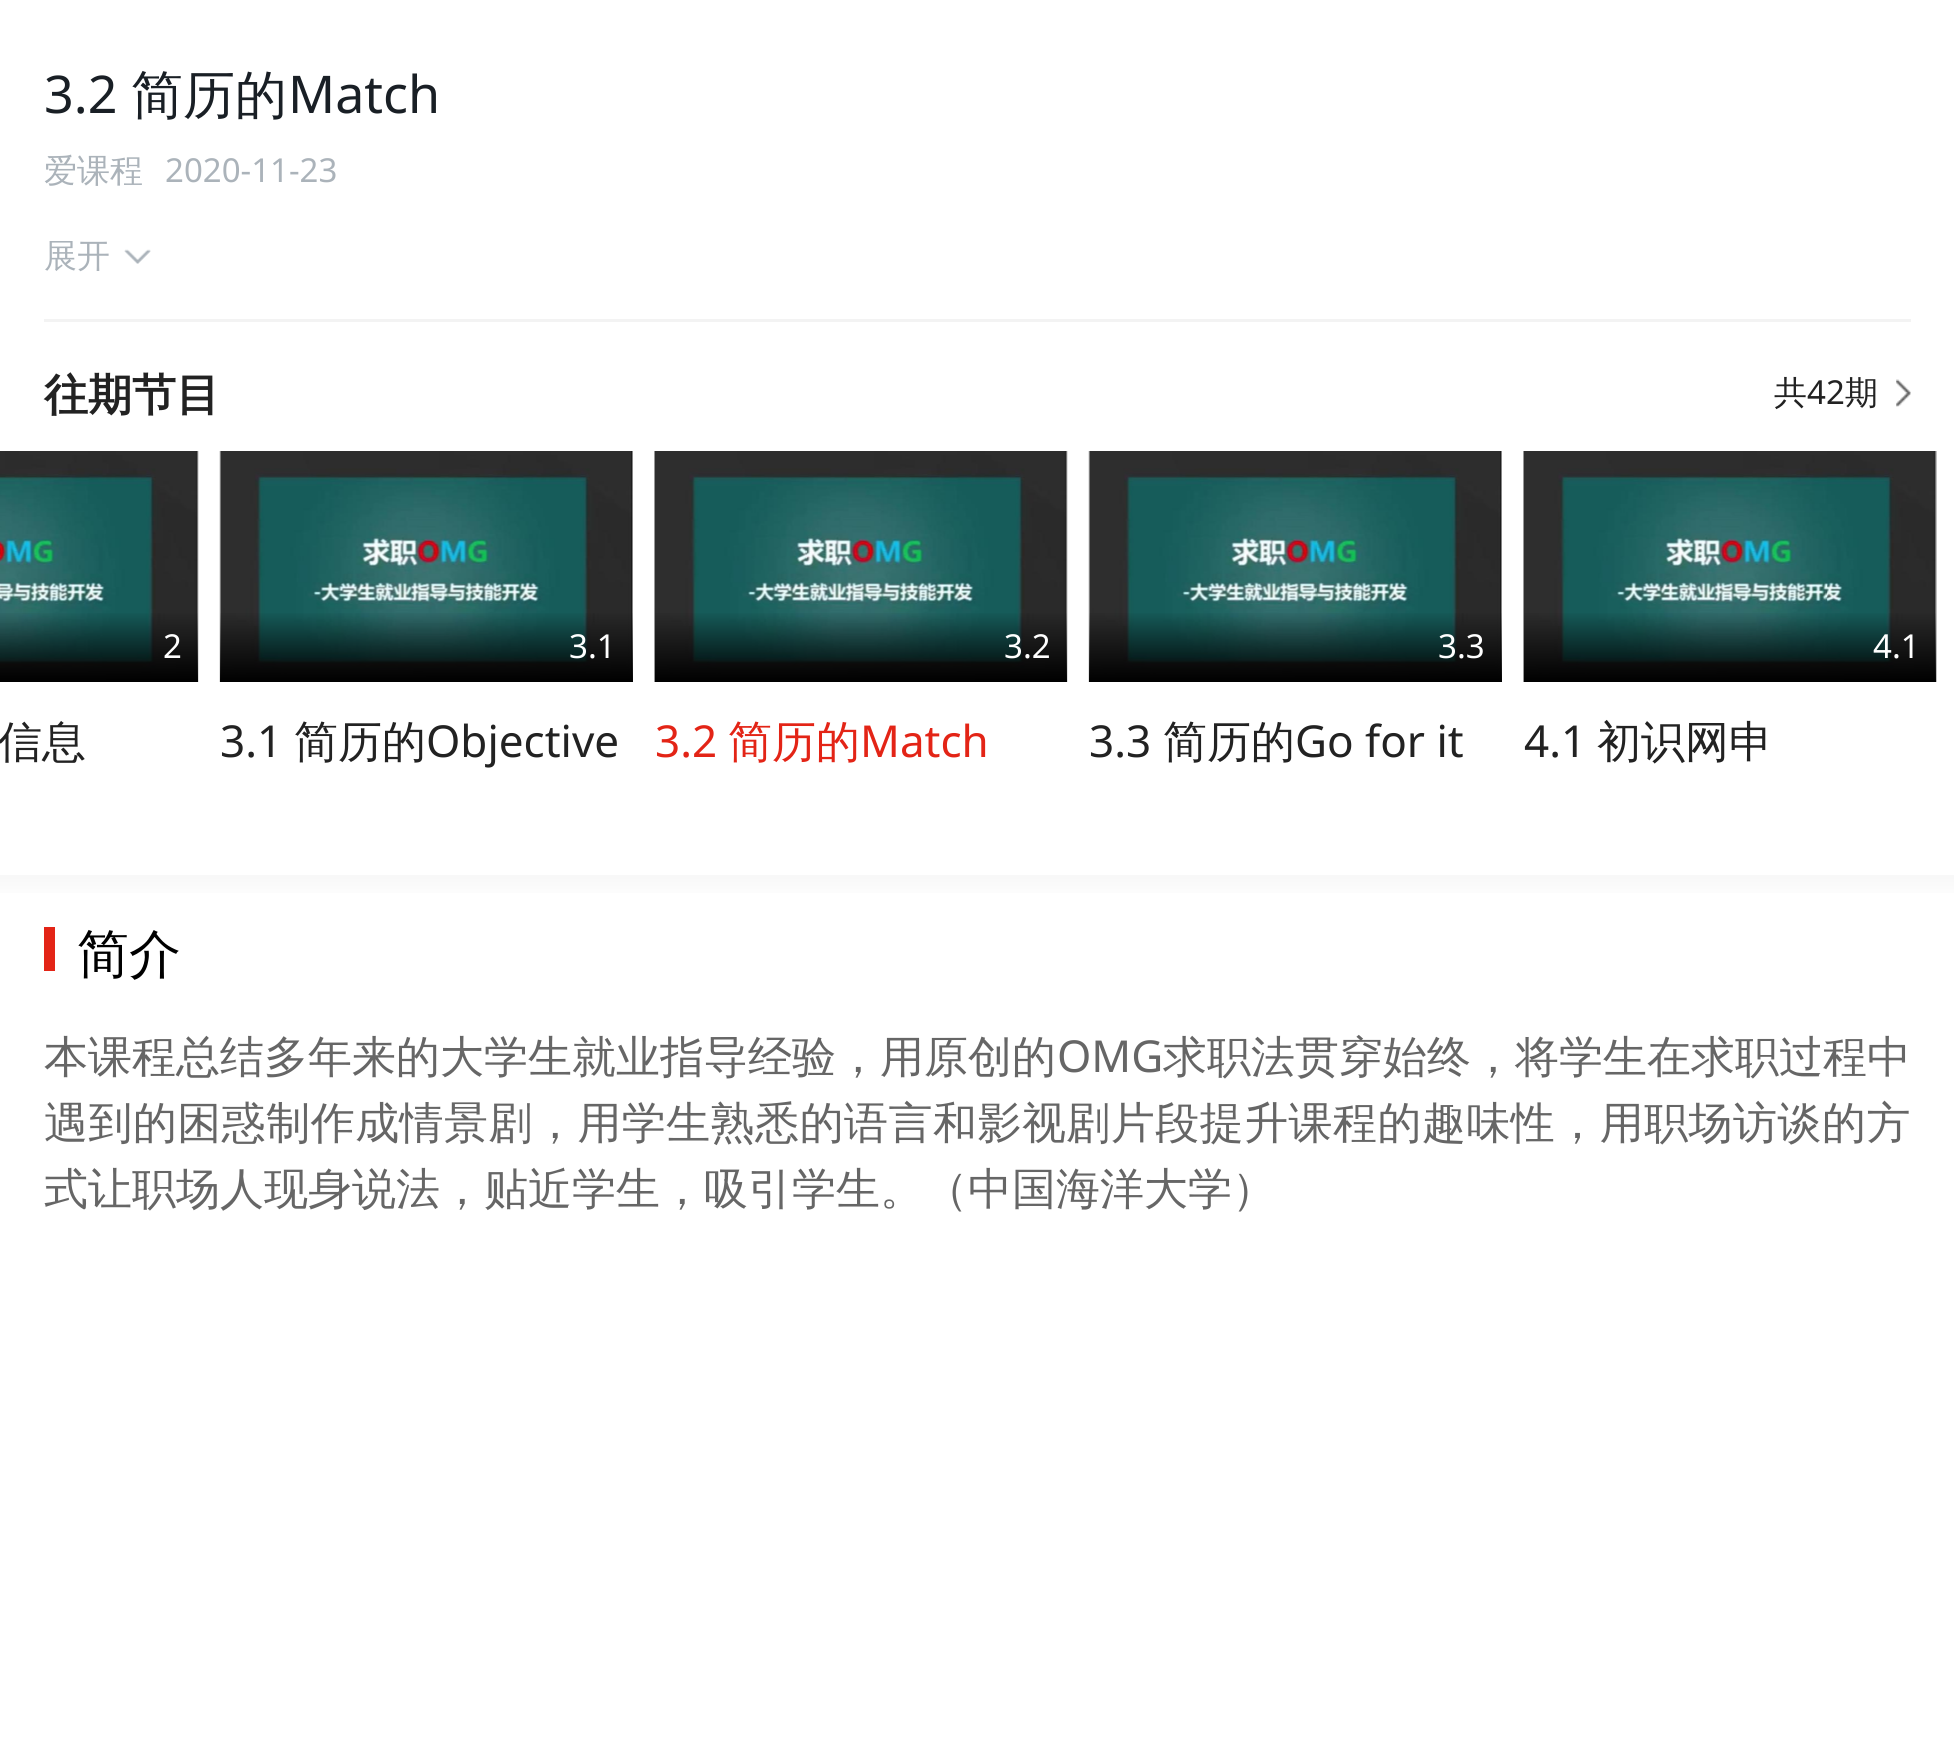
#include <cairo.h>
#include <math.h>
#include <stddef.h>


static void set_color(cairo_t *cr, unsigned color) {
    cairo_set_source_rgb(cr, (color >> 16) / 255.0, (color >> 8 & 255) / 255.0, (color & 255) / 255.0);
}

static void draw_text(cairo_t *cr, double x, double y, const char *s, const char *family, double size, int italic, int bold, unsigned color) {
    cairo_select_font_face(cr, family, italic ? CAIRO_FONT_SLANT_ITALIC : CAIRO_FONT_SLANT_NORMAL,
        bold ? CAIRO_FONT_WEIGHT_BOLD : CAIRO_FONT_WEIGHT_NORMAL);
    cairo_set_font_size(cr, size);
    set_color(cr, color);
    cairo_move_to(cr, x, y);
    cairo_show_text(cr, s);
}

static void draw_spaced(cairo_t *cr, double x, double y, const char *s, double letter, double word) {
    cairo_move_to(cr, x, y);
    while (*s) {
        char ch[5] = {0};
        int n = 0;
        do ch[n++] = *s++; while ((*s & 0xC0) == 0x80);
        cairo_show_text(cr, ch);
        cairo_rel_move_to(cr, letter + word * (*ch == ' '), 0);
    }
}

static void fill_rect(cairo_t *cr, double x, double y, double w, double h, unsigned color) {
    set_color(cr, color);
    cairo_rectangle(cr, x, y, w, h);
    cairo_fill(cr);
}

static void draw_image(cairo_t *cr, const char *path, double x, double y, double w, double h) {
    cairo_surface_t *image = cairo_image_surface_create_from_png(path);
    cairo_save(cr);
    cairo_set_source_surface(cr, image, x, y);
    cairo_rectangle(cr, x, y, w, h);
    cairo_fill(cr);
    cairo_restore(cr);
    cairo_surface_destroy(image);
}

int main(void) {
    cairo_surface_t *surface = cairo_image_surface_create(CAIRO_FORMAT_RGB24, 1954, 1746);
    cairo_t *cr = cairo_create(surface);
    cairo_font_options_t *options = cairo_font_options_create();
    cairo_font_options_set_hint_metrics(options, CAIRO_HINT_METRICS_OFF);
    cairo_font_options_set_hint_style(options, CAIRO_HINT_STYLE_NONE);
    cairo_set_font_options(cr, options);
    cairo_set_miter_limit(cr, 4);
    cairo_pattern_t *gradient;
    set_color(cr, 0xFFFFFF);
    cairo_paint(cr);
    fill_rect(cr, 44, 319, 1867, 3, 0xF3F3F3);
    draw_text(cr, 44, 113, "3.2", "Noto Sans", 52, 0, 0, 0x191F25);
    draw_text(cr, 131, 113, "简历的", "WenQuanYi Zen Hei Medium", 52, 0, 0, 0x191F25);
    draw_text(cr, 288, 113, "Match", "Noto Sans", 52, 0, 0, 0x191F25);
    draw_text(cr, 44, 182, "爱课程", "WenQuanYi Zen Hei Medium", 33, 0, 0, 0xABB3BA);
    draw_text(cr, 165, 182, "2020-11-23", "Noto Sans", 33, 0, 0, 0xABB3BA);
    draw_text(cr, 44, 267, "展开", "WenQuanYi Zen Hei Medium", 33, 0, 0, 0xABB3BA);
    draw_image(cr, "assets/img1.png", 124, 249, 27, 15);
    draw_text(cr, 44, 410, "往期节目", "WenQuanYi Zen Hei", 44, 0, 1, 0x222222);
    draw_text(cr, 1774, 404, "共", "WenQuanYi Zen Hei Medium", 33, 0, 0, 0x222222);
    draw_text(cr, 1807, 404, "42", "Noto Sans", 33, 0, 0, 0x222222);
    draw_text(cr, 1845, 404, "期", "WenQuanYi Zen Hei Medium", 33, 0, 0, 0x222222);
    draw_image(cr, "assets/img2.png", 1896, 379, 15, 28);
    draw_image(cr, "assets/img3.png", 0, 451, 199, 231);
    gradient = cairo_pattern_create_linear(-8, 682, -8, 611);
    cairo_pattern_add_color_stop_rgba(gradient, 0, 0, 0, 0, 1);
    cairo_pattern_add_color_stop_rgba(gradient, 1, 0, 0, 0, 0);
    cairo_set_source(cr, gradient);
    cairo_pattern_destroy(gradient);
    cairo_rectangle(cr, 0, 613, 198, 69);
    cairo_fill(cr);
    draw_text(cr, 163, 658, "2", "Noto Sans", 33, 0, 0, 0xFFFFFF);
    draw_text(cr, -2, 757, "信息", "WenQuanYi Zen Hei Medium", 44, 0, 0, 0x222222);
    draw_image(cr, "assets/img4.png", 219, 451, 414, 231);
    gradient = cairo_pattern_create_linear(426, 682, 426, 611);
    cairo_pattern_add_color_stop_rgba(gradient, 0, 0, 0, 0, 1);
    cairo_pattern_add_color_stop_rgba(gradient, 1, 0, 0, 0, 0);
    cairo_set_source(cr, gradient);
    cairo_pattern_destroy(gradient);
    cairo_rectangle(cr, 220, 613, 413, 69);
    cairo_fill(cr);
    draw_text(cr, 569, 658, "3.1", "Noto Sans", 33, 0, 0, 0xFFFFFF);
    draw_text(cr, 220, 757, "3.1", "Noto Sans", 44, 0, 0, 0x222222);
    draw_text(cr, 294, 757, "简历的", "WenQuanYi Zen Hei Medium", 44, 0, 0, 0x222222);
    draw_text(cr, 426, 757, "Objective", "Noto Sans", 44, 0, 0, 0x222222);
    draw_image(cr, "assets/img5.png", 654, 451, 414, 231);
    gradient = cairo_pattern_create_linear(861, 682, 861, 611);
    cairo_pattern_add_color_stop_rgba(gradient, 0, 0, 0, 0, 1);
    cairo_pattern_add_color_stop_rgba(gradient, 1, 0, 0, 0, 0);
    cairo_set_source(cr, gradient);
    cairo_pattern_destroy(gradient);
    cairo_rectangle(cr, 655, 613, 412, 69);
    cairo_fill(cr);
    draw_text(cr, 1004, 658, "3.2", "Noto Sans", 33, 0, 0, 0xFFFFFF);
    draw_text(cr, 655, 757, "3.2", "Noto Sans", 44, 0, 0, 0xE32416);
    draw_text(cr, 728, 757, "简历的", "WenQuanYi Zen Hei Medium", 44, 0, 0, 0xE32416);
    draw_text(cr, 860, 757, "Match", "Noto Sans", 44, 0, 0, 0xE32416);
    draw_image(cr, "assets/img6.png", 1088, 451, 414, 231);
    gradient = cairo_pattern_create_linear(1295, 682, 1295, 611);
    cairo_pattern_add_color_stop_rgba(gradient, 0, 0, 0, 0, 1);
    cairo_pattern_add_color_stop_rgba(gradient, 1, 0, 0, 0, 0);
    cairo_set_source(cr, gradient);
    cairo_pattern_destroy(gradient);
    cairo_rectangle(cr, 1089, 613, 413, 69);
    cairo_fill(cr);
    draw_text(cr, 1438, 658, "3.3", "Noto Sans", 33, 0, 0, 0xFFFFFF);
    draw_text(cr, 1089, 757, "3.3", "Noto Sans", 44, 0, 0, 0x222222);
    draw_text(cr, 1163, 757, "简历的", "WenQuanYi Zen Hei Medium", 44, 0, 0, 0x222222);
    draw_text(cr, 1295, 757, "Go for it", "Noto Sans", 44, 0, 0, 0x222222);
    draw_image(cr, "assets/img7.png", 1523, 451, 414, 231);
    gradient = cairo_pattern_create_linear(1730, 682, 1730, 611);
    cairo_pattern_add_color_stop_rgba(gradient, 0, 0, 0, 0, 1);
    cairo_pattern_add_color_stop_rgba(gradient, 1, 0, 0, 0, 0);
    cairo_set_source(cr, gradient);
    cairo_pattern_destroy(gradient);
    cairo_rectangle(cr, 1524, 613, 412, 69);
    cairo_fill(cr);
    draw_text(cr, 1873, 658, "4.1", "Noto Sans", 33, 0, 0, 0xFFFFFF);
    draw_text(cr, 1524, 757, "4.1", "Noto Sans", 44, 0, 0, 0x222222);
    draw_text(cr, 1597, 757, "初识网申", "WenQuanYi Zen Hei Medium", 44, 0, 0, 0x222222);
    gradient = cairo_pattern_create_linear(978, 874, 978, 1265);
    cairo_pattern_add_color_stop_rgba(gradient, 0, 0.969, 0.969, 0.969, 1);
    cairo_pattern_add_color_stop_rgba(gradient, 0.07, 1, 1, 1, 1);
    cairo_set_source(cr, gradient);
    cairo_pattern_destroy(gradient);
    cairo_rectangle(cr, 0, 875, 1954, 18);
    cairo_fill(cr);
    fill_rect(cr, 44, 927, 11, 44, 0xE32416);
    draw_text(cr, 77, 972, "简介", "WenQuanYi Zen Hei Medium", 52, 0, 0, 0x000000);
    draw_text(cr, 44, 1072, "本课程总结多年来的大学生就业指导经验，用原创的", "WenQuanYi Zen Hei Medium", 44, 0, 0, 0x666666);
    draw_text(cr, 1057, 1072, "OMG", "Noto Sans", 44, 0, 0, 0x666666);
    draw_text(cr, 1163, 1072, "求职法贯穿始终，将学生在求职过程中", "WenQuanYi Zen Hei Medium", 44, 0, 0, 0x666666);
    draw_spaced(cr, 44, 1138, "遇到的困惑制作成情景剧，用学生熟悉的语言和影视剧片段提升课程的趣味性，用职场访谈的方", 0.45, 0);
    draw_text(cr, 44, 1204, "式让职场人现身说法，贴近学生，吸引学生。（中国海洋大学）", "WenQuanYi Zen Hei Medium", 44, 0, 0, 0x666666);
    cairo_surface_write_to_png(surface, "output.png");
    cairo_font_options_destroy(options);
    cairo_destroy(cr);
    cairo_surface_destroy(surface);
    return 0;
}
